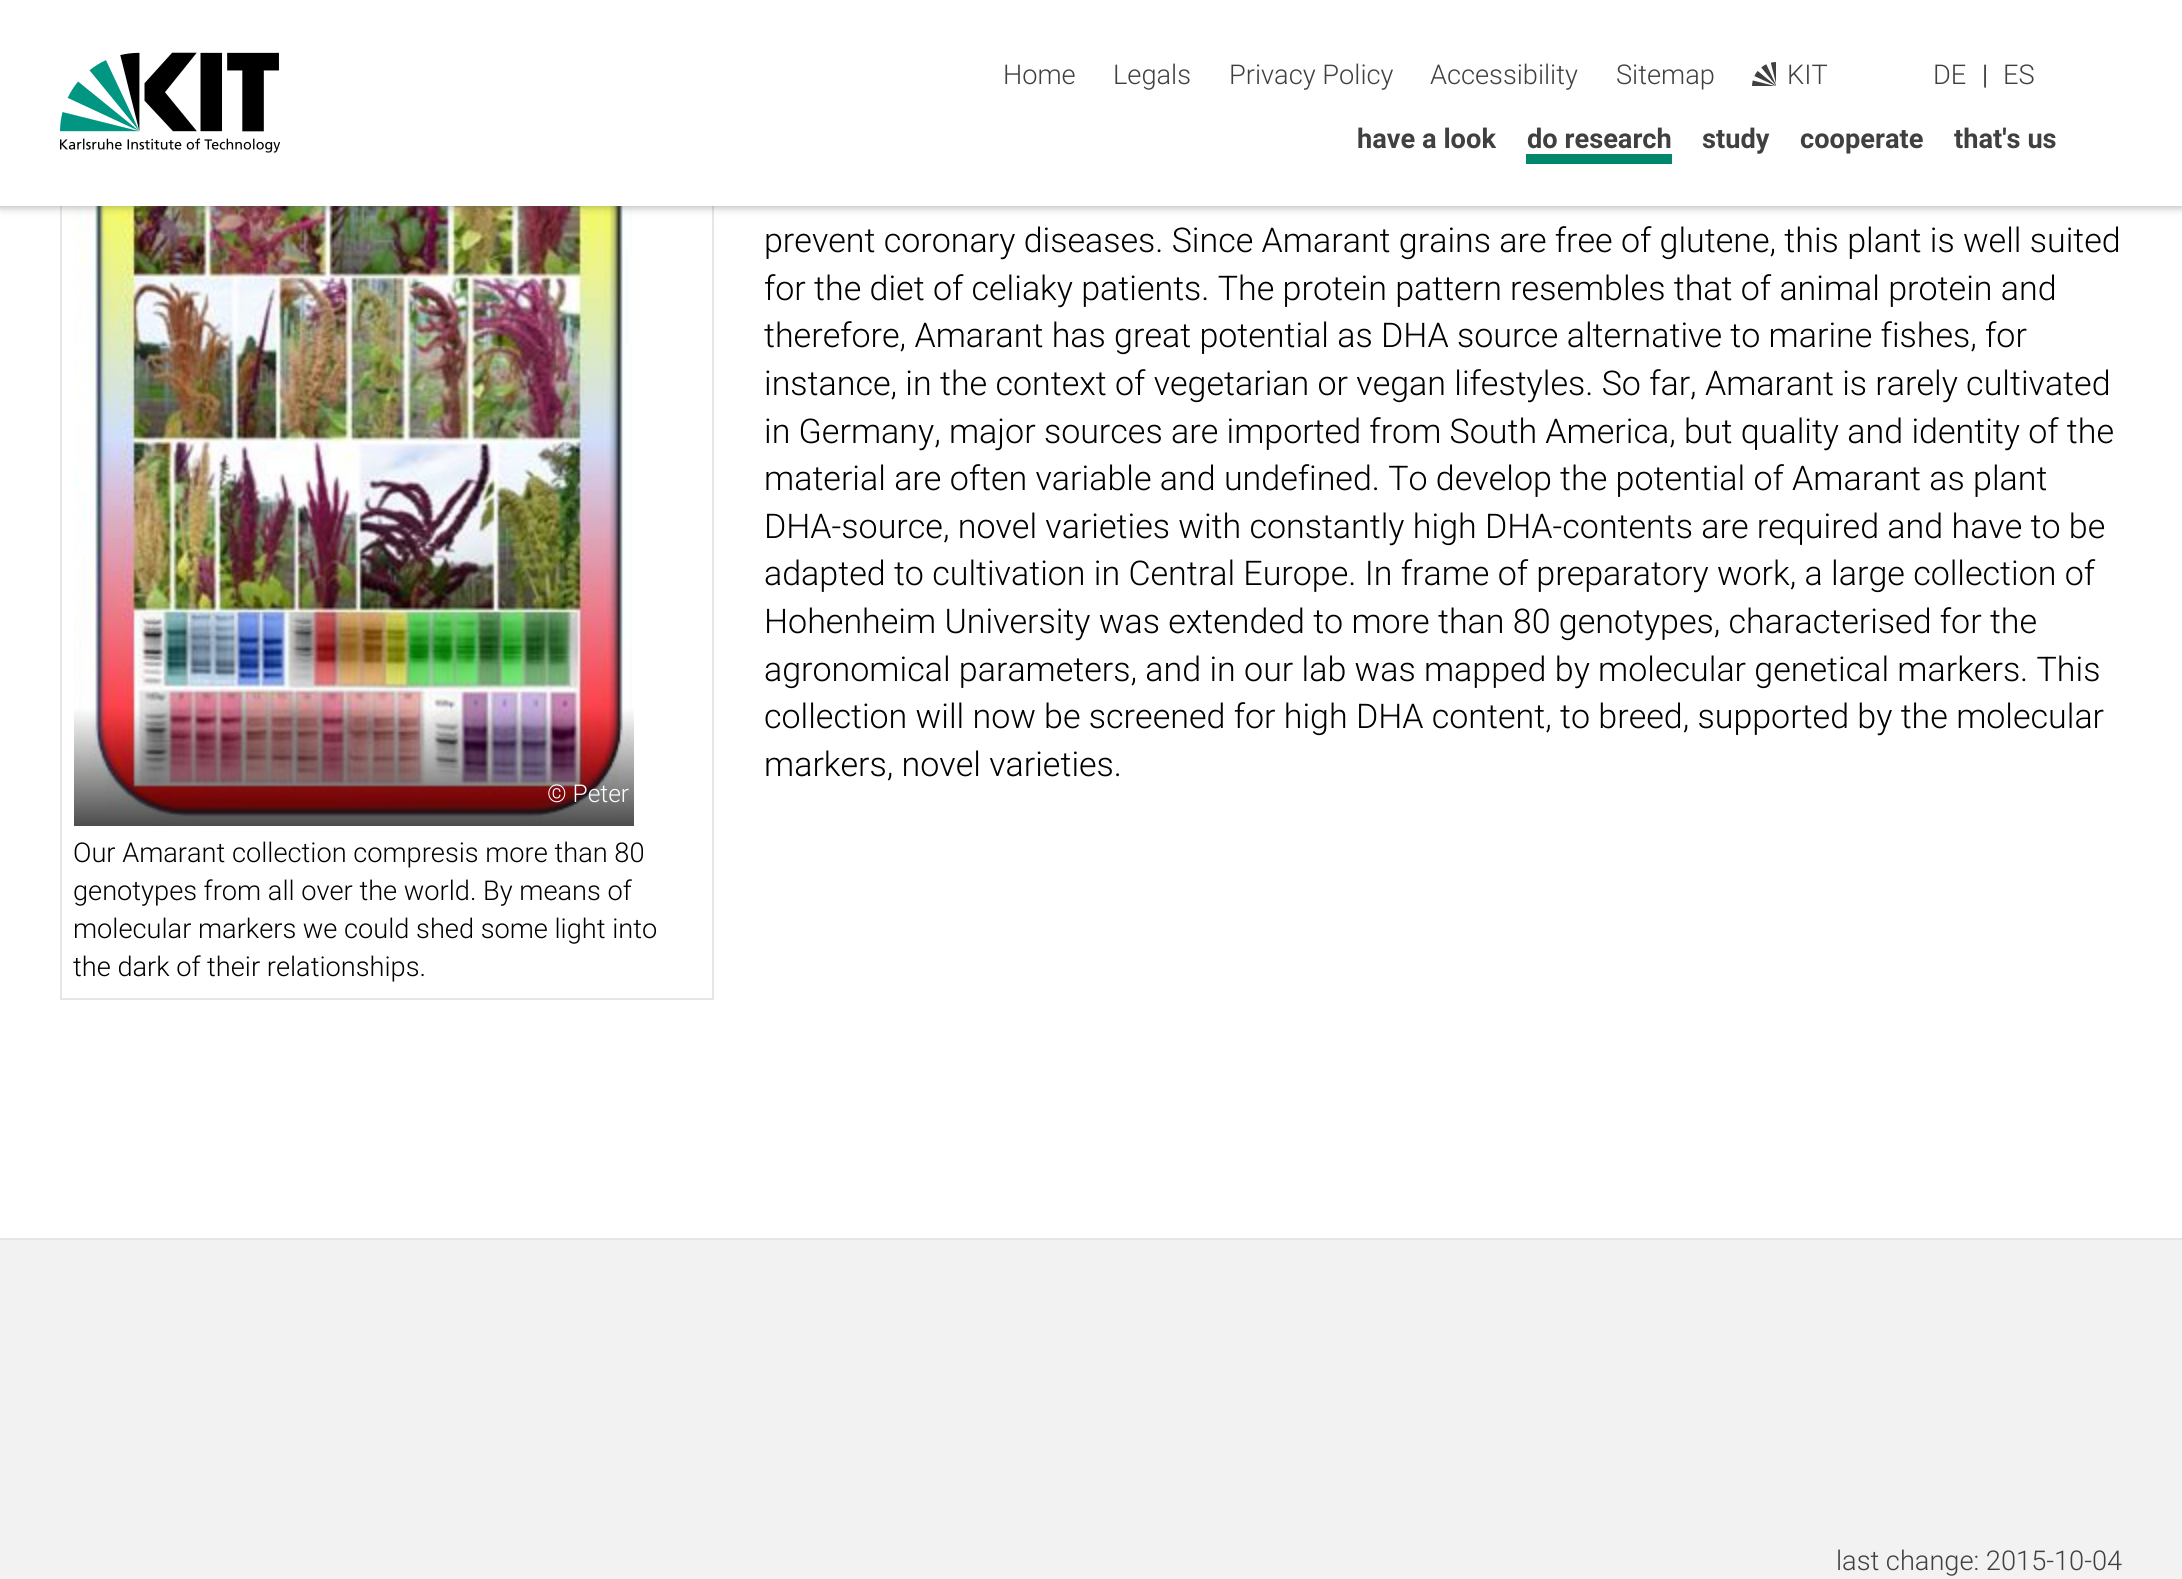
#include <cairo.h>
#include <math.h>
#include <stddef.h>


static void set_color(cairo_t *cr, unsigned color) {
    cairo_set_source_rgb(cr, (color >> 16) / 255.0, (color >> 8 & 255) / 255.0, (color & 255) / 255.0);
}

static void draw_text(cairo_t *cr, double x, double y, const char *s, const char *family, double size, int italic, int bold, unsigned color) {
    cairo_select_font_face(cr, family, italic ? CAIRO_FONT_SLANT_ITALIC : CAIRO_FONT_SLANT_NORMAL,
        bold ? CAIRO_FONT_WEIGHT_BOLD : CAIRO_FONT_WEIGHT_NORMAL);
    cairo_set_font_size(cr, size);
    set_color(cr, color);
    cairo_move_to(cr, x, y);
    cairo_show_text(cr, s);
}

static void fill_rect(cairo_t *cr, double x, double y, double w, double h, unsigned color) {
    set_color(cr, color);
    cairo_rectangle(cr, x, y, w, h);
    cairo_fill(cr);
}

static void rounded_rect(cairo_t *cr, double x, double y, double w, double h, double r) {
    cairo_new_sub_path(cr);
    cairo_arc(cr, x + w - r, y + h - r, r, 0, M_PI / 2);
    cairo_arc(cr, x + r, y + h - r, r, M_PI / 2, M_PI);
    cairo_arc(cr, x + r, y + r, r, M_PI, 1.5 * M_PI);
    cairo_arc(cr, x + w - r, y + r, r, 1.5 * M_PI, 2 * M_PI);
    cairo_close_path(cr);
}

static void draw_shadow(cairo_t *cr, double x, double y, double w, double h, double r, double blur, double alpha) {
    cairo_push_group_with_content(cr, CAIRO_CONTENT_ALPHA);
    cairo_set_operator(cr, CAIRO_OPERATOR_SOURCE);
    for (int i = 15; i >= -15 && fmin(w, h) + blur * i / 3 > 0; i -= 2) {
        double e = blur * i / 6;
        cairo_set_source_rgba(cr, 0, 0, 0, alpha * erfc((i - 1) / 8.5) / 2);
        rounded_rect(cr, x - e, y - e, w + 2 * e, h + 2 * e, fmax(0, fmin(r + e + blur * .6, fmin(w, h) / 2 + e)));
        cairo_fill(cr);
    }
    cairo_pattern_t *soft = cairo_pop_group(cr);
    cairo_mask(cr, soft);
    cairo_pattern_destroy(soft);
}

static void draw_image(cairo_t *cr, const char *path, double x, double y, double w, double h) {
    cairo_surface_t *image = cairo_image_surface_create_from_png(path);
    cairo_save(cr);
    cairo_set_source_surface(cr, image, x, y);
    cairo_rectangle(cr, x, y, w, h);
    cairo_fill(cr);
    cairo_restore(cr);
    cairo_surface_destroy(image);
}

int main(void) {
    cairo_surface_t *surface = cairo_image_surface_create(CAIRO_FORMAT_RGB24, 2182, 1579);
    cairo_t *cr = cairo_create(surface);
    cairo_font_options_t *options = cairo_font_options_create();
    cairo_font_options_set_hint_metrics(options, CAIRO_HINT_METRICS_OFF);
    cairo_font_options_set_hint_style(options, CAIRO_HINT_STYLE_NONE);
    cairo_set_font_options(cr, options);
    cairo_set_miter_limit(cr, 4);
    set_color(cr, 0xFFFFFF);
    cairo_paint(cr);
    cairo_rectangle(cr, 61, 29, 652, 970);
    set_color(cr, 0xE6E6E6);
    cairo_stroke(cr);
    draw_image(cr, "assets/img3.png", 74, 206, 560, 620);
    set_color(cr, 0x404040);
    draw_shadow(cr, 0, 0, 2182, 206, 0, 5, 0.5);
    fill_rect(cr, 0, 0, 2182, 206, 0xFFFFFF);
    draw_image(cr, "assets/img1.png", 60, 52, 220, 101);
    draw_text(cr, 1003, 84, "Home", "Roboto Light", 27.2, 0, 0, 0x404040);
    draw_text(cr, 1113, 84, "Legals", "Roboto Light", 27.2, 0, 0, 0x404040);
    draw_text(cr, 1229, 84, "Privacy Policy", "Roboto Light", 27.2, 0, 0, 0x404040);
    draw_text(cr, 1430, 84, "Accessibility", "Roboto Light", 27.2, 0, 0, 0x404040);
    draw_text(cr, 1616, 84, "Sitemap", "Roboto Light", 27.2, 0, 0, 0x404040);
    draw_image(cr, "assets/img2.png", 1752, 62, 24, 24);
    draw_text(cr, 1787, 84, "KIT", "Roboto Light", 27.2, 0, 0, 0x404040);
    draw_text(cr, 1933, 84, "DE", "Roboto Light", 27.2, 0, 0, 0x404040);
    draw_text(cr, 1982, 84, "|", "Roboto Light", 27.2, 0, 0, 0x000000);
    draw_text(cr, 2003, 84, "ES", "Roboto Light", 27.2, 0, 0, 0x404040);
    draw_text(cr, 1357, 148, "have a look", "Roboto", 27.2, 0, 1, 0x404040);
    draw_text(cr, 1527, 148, "do research", "Roboto", 27.2, 0, 1, 0x404040);
    fill_rect(cr, 1526, 154, 146, 10, 0x00876C);
    draw_text(cr, 1702, 148, "study", "Roboto", 27.2, 0, 1, 0x404040);
    draw_text(cr, 1800, 148, "cooperate", "Roboto", 27.2, 0, 1, 0x404040);
    draw_text(cr, 1954, 148, "that's us", "Roboto", 27.2, 0, 1, 0x404040);
    draw_text(cr, 764, 252, "prevent coronary diseases. Since Amarant grains are free of glutene, this plant is well suited", "Roboto Light", 34, 0, 0, 0x000000);
    draw_text(cr, 764, 300, "for the diet of celiaky patients. The protein pattern resembles that of animal protein and", "Roboto Light", 34, 0, 0, 0x000000);
    draw_text(cr, 764, 347, "therefore, Amarant has great potential as DHA source alternative to marine fishes, for", "Roboto Light", 34, 0, 0, 0x000000);
    draw_text(cr, 764, 395, "instance, in the context of vegetarian or vegan lifestyles. So far, Amarant is rarely cultivated", "Roboto Light", 34, 0, 0, 0x000000);
    draw_text(cr, 764, 443, "in Germany, major sources are imported from South America, but quality and identity of the", "Roboto Light", 34, 0, 0, 0x000000);
    draw_text(cr, 764, 490, "material are often variable and undefined. To develop the potential of Amarant as plant", "Roboto Light", 34, 0, 0, 0x000000);
    draw_text(cr, 764, 538, "DHA-source, novel varieties with constantly high DHA-contents are required and have to be", "Roboto Light", 34, 0, 0, 0x000000);
    draw_text(cr, 764, 585, "adapted to cultivation in Central Europe. In frame of preparatory work, a large collection of", "Roboto Light", 34, 0, 0, 0x000000);
    draw_text(cr, 764, 633, "Hohenheim University was extended to more than 80 genotypes, characterised for the", "Roboto Light", 34, 0, 0, 0x000000);
    draw_text(cr, 764, 681, "agronomical parameters, and in our lab was mapped by molecular genetical markers. This", "Roboto Light", 34, 0, 0, 0x000000);
    draw_text(cr, 764, 728, "collection will now be screened for high DHA content, to breed, supported by the molecular", "Roboto Light", 34, 0, 0, 0x000000);
    draw_text(cr, 764, 776, "markers, novel varieties.", "Roboto Light", 34, 0, 0, 0x000000);
    draw_text(cr, 547, 802, "© Peter", "Roboto Light", 24.5, 0, 0, 0xFFFFFF);
    draw_text(cr, 73, 862, "Our Amarant collection compresis more than 80", "Roboto Light", 27.2, 0, 0, 0x000000);
    draw_text(cr, 73, 900, "genotypes from all over the world. By means of", "Roboto Light", 27.2, 0, 0, 0x000000);
    draw_text(cr, 73, 938, "molecular markers we could shed some light into", "Roboto Light", 27.2, 0, 0, 0x000000);
    draw_text(cr, 73, 976, "the dark of their relationships.", "Roboto Light", 27.2, 0, 0, 0x000000);
    fill_rect(cr, 0, 1240, 2182, 339, 0xF2F2F2);
    fill_rect(cr, 0, 1238, 2182, 2, 0xE6E6E6);
    draw_text(cr, 1836, 1570, "last change: 2015-10-04", "Roboto Light", 27.2, 0, 0, 0x404040);
    cairo_surface_write_to_png(surface, "output.png");
    cairo_font_options_destroy(options);
    cairo_destroy(cr);
    cairo_surface_destroy(surface);
    return 0;
}
